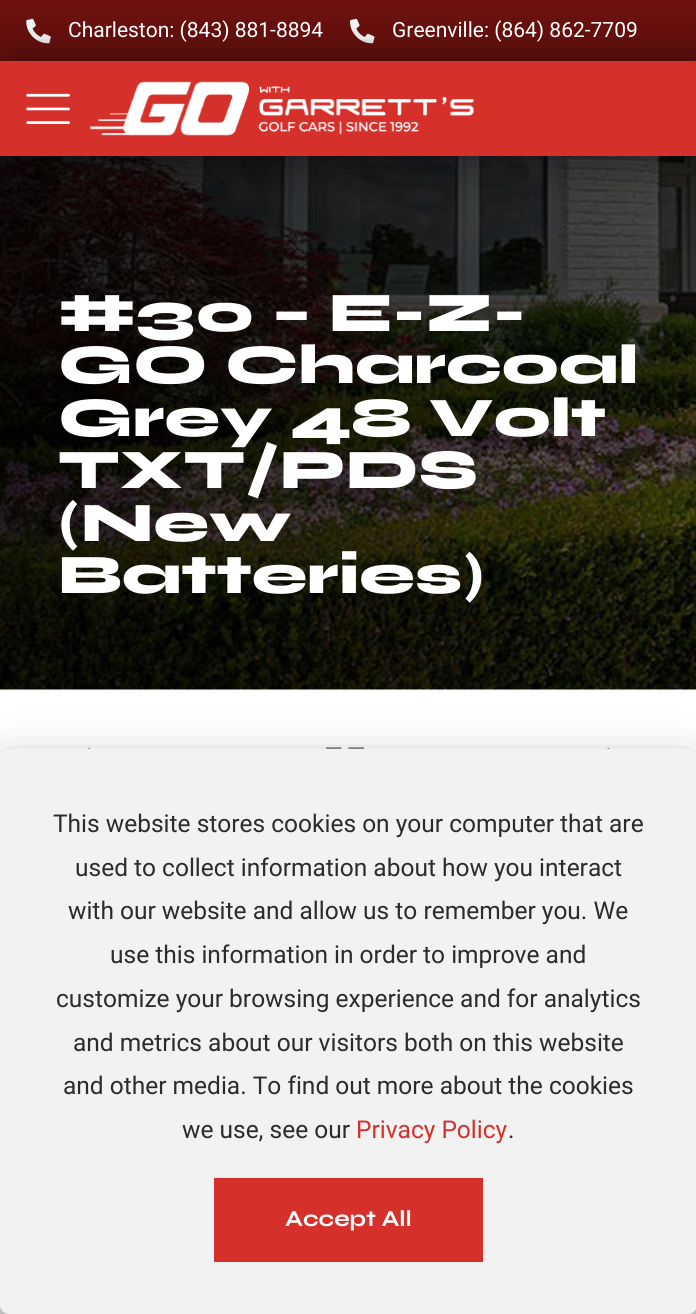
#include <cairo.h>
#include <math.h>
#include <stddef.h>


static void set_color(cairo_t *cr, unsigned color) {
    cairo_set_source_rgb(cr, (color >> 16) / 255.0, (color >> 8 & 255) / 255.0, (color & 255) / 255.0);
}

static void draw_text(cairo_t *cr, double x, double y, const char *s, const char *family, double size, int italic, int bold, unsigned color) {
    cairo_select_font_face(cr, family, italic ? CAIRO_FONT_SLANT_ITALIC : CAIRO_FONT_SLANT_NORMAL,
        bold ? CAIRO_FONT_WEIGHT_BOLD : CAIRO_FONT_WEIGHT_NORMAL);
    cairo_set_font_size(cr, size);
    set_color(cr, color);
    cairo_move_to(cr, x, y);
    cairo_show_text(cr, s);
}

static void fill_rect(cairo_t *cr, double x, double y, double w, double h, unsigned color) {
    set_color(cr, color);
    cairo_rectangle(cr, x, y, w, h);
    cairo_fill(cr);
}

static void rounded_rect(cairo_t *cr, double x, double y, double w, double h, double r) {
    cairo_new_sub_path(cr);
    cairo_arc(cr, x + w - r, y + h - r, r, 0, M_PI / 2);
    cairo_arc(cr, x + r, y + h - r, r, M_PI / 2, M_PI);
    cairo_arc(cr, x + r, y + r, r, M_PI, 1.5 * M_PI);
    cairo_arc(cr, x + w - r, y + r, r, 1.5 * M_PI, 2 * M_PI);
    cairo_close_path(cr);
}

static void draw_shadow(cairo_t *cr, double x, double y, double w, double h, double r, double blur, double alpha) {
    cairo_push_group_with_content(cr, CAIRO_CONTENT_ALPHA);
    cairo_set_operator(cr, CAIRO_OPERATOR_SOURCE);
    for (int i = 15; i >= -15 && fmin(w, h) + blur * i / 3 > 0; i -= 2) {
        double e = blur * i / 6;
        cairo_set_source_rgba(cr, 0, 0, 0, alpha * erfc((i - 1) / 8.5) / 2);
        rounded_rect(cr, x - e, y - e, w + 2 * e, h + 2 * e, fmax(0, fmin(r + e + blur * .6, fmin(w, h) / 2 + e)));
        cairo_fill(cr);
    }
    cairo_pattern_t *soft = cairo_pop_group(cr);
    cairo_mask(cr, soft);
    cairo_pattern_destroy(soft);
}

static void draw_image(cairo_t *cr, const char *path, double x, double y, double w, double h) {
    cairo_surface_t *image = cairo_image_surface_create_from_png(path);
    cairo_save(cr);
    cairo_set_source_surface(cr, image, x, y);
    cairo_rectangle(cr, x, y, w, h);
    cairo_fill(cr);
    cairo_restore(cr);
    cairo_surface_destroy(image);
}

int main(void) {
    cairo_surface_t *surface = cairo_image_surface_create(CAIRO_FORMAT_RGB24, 696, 1314);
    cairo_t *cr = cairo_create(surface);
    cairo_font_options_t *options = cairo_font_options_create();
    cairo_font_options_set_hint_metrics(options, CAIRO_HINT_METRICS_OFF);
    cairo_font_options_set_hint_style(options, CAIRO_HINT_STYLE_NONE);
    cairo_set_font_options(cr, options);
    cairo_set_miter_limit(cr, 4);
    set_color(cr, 0xFFFFFF);
    cairo_paint(cr);
    fill_rect(cr, 0, 61, 696, 95, 0xD6302B);
    fill_rect(cr, 0, 0, 696, 61, 0x6C110E);
    draw_image(cr, "assets/img3.png", 26, 18, 25, 26);
    draw_image(cr, "assets/img4.png", 350, 18, 25, 26);
    draw_image(cr, "assets/img5.png", 0, 156, 696, 534);
    cairo_save(cr);
    cairo_set_fill_rule(cr, CAIRO_FILL_RULE_EVEN_ODD);
    cairo_new_path(cr);
    cairo_move_to(cr, 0, 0);
    cairo_line_to(cr, 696, 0);
    cairo_line_to(cr, 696, 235);
    cairo_line_to(cr, 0, 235);
    cairo_close_path(cr);
    cairo_move_to(cr, 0, 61);
    cairo_line_to(cr, 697, 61);
    cairo_line_to(cr, 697, 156);
    cairo_line_to(cr, 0, 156);
    cairo_close_path(cr);
    cairo_clip(cr);
    set_color(cr, 0x000000);
    draw_shadow(cr, 5, 61, 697, 95, 0, 26, 0.57);
    cairo_restore(cr);
    draw_image(cr, "assets/img1.png", 26, 93, 44, 31);
    draw_image(cr, "assets/img2.png", 89, 81, 386, 55);
    draw_text(cr, 68, 37, "Charleston: (843) 881-8894", "Roboto", 21, 0, 0, 0xFFFFFF);
    draw_text(cr, 392, 37, "Greenville: (864) 862-7709", "Roboto", 21, 0, 0, 0xFFFFFF);
    draw_text(cr, 58, 331, "#30 – E-Z-", "Syne ExtraBold", 56, 0, 0, 0xFFFFFF);
    draw_text(cr, 58, 383, "GO Charcoal", "Syne ExtraBold", 56, 0, 0, 0xFFFFFF);
    draw_text(cr, 58, 436, "Grey 48 Volt", "Syne ExtraBold", 56, 0, 0, 0xFFFFFF);
    draw_text(cr, 58, 488, "TXT/PDS", "Syne ExtraBold", 56, 0, 0, 0xFFFFFF);
    draw_text(cr, 58, 541, "(New", "Syne ExtraBold", 56, 0, 0, 0xFFFFFF);
    draw_text(cr, 58, 593, "Batteries)", "Syne ExtraBold", 56, 0, 0, 0xFFFFFF);
    set_color(cr, 0x898989);
    cairo_new_path(cr);
    cairo_move_to(cr, 90, 783);
    cairo_line_to(cr, 90.5, 784.5);
    cairo_curve_to(cr, 89.5, 788.5, 85, 782.5, 85, 782.5);
    cairo_line_to(cr, 70, 767.5);
    cairo_line_to(cr, 70, 766.5);
    cairo_line_to(cr, 70.5, 766);
    cairo_line_to(cr, 88, 748.5);
    cairo_line_to(cr, 89, 748);
    cairo_curve_to(cr, 92.5, 749, 87.5, 753, 87, 753.5);
    cairo_line_to(cr, 74, 767);
    cairo_close_path(cr);
    cairo_fill(cr);
    draw_image(cr, "assets/img6.png", 326, 747, 38, 2);
    cairo_new_path(cr);
    cairo_move_to(cr, 608, 783);
    cairo_line_to(cr, 623.5, 767);
    cairo_line_to(cr, 610.5, 753.5);
    cairo_curve_to(cr, 610, 753, 605, 749, 608.5, 748);
    cairo_line_to(cr, 609.5, 748.5);
    cairo_line_to(cr, 627.5, 766);
    cairo_line_to(cr, 627.5, 766.5);
    cairo_line_to(cr, 627.5, 767.5);
    cairo_line_to(cr, 613, 782.5);
    cairo_curve_to(cr, 612.5, 782.5, 608.5, 788.5, 607.5, 784.5);
    cairo_close_path(cr);
    cairo_fill(cr);
    set_color(cr, 0x000000);
    draw_shadow(cr, 0, 775, 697, 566, 9, 26, 0.5);
    set_color(cr, 0xF2F2F2);
    rounded_rect(cr, 0, 749, 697, 565, 9);
    cairo_fill(cr);
    draw_text(cr, 53, 832, "This website stores cookies on your computer that are", "Roboto", 24.5, 0, 0, 0x2E2C2A);
    draw_text(cr, 75, 876, "used to collect information about how you interact", "Roboto", 24.5, 0, 0, 0x2E2C2A);
    draw_text(cr, 68, 919, "with our website and allow us to remember you. We", "Roboto", 24.5, 0, 0, 0x2E2C2A);
    draw_text(cr, 110, 963, "use this information in order to improve and", "Roboto", 24.5, 0, 0, 0x2E2C2A);
    draw_text(cr, 56, 1007, "customize your browsing experience and for analytics", "Roboto", 24.5, 0, 0, 0x2E2C2A);
    draw_text(cr, 73, 1051, "and metrics about our visitors both on this website", "Roboto", 24.5, 0, 0, 0x2E2C2A);
    draw_text(cr, 63, 1094, "and other media. To find out more about the cookies", "Roboto", 24.5, 0, 0, 0x2E2C2A);
    draw_text(cr, 182, 1138, "we use, see our", "Roboto", 24.5, 0, 0, 0x2E2C2A);
    draw_text(cr, 356, 1138, "Privacy Policy", "Roboto", 24.5, 0, 0, 0xD6302B);
    draw_text(cr, 508, 1138, ".", "Roboto", 24.5, 0, 0, 0x2E2C2A);
    fill_rect(cr, 214, 1178, 269, 84, 0xD6302B);
    draw_text(cr, 285, 1226, "Accept All", "Syne", 22.75, 0, 1, 0xFFFFFF);
    cairo_surface_write_to_png(surface, "output.png");
    cairo_font_options_destroy(options);
    cairo_destroy(cr);
    cairo_surface_destroy(surface);
    return 0;
}
